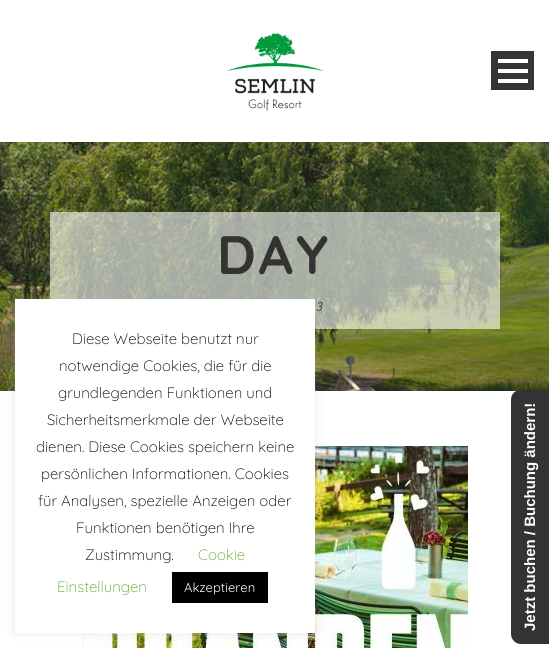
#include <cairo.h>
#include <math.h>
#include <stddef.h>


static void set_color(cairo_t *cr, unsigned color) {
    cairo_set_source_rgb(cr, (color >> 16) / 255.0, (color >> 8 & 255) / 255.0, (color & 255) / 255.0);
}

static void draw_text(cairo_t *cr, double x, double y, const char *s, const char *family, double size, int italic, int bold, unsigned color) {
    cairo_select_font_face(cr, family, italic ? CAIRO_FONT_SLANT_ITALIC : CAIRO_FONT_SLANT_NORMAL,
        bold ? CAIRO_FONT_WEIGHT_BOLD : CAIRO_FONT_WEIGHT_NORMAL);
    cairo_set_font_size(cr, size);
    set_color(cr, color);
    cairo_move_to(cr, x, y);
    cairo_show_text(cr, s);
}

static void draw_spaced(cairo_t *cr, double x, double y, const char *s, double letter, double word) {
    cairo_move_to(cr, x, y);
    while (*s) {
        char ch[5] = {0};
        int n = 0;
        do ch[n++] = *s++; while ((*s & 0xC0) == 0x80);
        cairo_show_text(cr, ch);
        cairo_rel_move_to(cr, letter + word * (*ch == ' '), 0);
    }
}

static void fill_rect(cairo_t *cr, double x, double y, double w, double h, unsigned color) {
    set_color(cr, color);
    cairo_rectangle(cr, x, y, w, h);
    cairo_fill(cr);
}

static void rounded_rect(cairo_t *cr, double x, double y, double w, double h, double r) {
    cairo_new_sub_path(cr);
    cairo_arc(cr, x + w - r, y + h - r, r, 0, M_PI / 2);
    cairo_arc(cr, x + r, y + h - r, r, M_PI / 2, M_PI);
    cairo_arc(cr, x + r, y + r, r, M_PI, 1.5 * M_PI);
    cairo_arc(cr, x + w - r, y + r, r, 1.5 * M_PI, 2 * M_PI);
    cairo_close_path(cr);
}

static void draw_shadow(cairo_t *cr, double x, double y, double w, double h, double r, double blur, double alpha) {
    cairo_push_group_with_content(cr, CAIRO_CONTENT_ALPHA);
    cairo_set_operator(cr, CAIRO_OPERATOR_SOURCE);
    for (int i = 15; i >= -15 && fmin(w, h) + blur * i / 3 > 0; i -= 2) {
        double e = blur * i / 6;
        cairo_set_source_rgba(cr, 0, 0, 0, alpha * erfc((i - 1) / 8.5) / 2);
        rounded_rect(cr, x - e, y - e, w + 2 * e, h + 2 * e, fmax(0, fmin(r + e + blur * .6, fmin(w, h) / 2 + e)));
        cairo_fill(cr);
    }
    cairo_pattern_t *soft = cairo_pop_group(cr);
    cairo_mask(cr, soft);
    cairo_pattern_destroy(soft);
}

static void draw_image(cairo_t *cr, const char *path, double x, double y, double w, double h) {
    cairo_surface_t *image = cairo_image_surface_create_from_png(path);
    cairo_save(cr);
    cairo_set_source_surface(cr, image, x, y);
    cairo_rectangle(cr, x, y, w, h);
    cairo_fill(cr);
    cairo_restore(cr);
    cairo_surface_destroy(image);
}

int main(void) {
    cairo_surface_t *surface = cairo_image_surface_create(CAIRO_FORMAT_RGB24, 549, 648);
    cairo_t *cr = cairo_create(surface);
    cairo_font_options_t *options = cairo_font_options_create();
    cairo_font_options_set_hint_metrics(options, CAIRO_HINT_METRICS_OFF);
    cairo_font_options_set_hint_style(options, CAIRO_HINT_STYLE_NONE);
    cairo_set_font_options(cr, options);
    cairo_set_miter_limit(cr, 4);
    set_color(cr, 0xFFFFFF);
    cairo_paint(cr);
    draw_image(cr, "assets/img1.png", 227, 33, 96, 78);
    fill_rect(cr, 491, 51, 43, 39, 0x353535);
    fill_rect(cr, 498, 79, 30, 4, 0xFFFFFF);
    fill_rect(cr, 498, 69, 30, 4, 0xFFFFFF);
    fill_rect(cr, 498, 59, 30, 4, 0xFFFFFF);
    draw_image(cr, "assets/img2.png", 0, 142, 549, 249);
    cairo_set_source_rgba(cr, 1, 1, 1, 0.6);
    cairo_rectangle(cr, 50, 212, 450, 117);
    cairo_fill(cr);
    cairo_select_font_face(cr, "Quicksand", CAIRO_FONT_SLANT_NORMAL, CAIRO_FONT_WEIGHT_BOLD);
    cairo_set_font_size(cr, 54);
    set_color(cr, 0x333333);
    draw_spaced(cr, 217, 274, "DAY", 3, 0);
    cairo_select_font_face(cr, "Zilla Slab", CAIRO_FONT_SLANT_ITALIC, CAIRO_FONT_WEIGHT_NORMAL);
    cairo_set_font_size(cr, 13);
    draw_spaced(cr, 316, 309, "3", 1, 0);
    draw_image(cr, "assets/img3.png", 82, 446, 386, 202);
    set_color(cr, 0xACABAB);
    draw_shadow(cr, 15, 298, 300, 334, 0, 5, 0.3);
    fill_rect(cr, 15, 299, 300, 334, 0xFFFFFF);
    draw_text(cr, 72, 344, "Diese Webseite benutzt nur", "Quicksand Light", 15, 0, 0, 0x000000);
    draw_text(cr, 59, 371, "notwendige Cookies, die für die", "Quicksand Light", 15, 0, 0, 0x000000);
    draw_text(cr, 58, 398, "grundlegenden Funktionen und", "Quicksand Light", 15, 0, 0, 0x000000);
    draw_text(cr, 47, 425, "Sicherheitsmerkmale der Webseite", "Quicksand Light", 15, 0, 0, 0x000000);
    draw_text(cr, 36, 452, "dienen. Diese Cookies speichern keine", "Quicksand Light", 15, 0, 0, 0x000000);
    draw_text(cr, 41, 479, "persönlichen Informationen. Cookies", "Quicksand Light", 15, 0, 0, 0x000000);
    draw_text(cr, 38, 506, "für Analysen, spezielle Anzeigen oder", "Quicksand Light", 15, 0, 0, 0x000000);
    draw_text(cr, 76, 533, "Funktionen benötigen Ihre", "Quicksand Light", 15, 0, 0, 0x000000);
    draw_text(cr, 85, 560, "Zustimmung.", "Quicksand Light", 15, 0, 0, 0x000000);
    draw_text(cr, 198, 560, "Cookie", "Quicksand Light", 15, 0, 0, 0x62A329);
    draw_text(cr, 57, 592, "Einstellungen", "Quicksand Light", 15, 0, 0, 0x62A329);
    fill_rect(cr, 172, 572, 96, 31, 0x000000);
    draw_text(cr, 184, 592, "Akzeptieren", "Quicksand", 13, 0, 0, 0xFFFFFF);
    set_color(cr, 0x333333);
    cairo_new_path(cr);
    cairo_move_to(cr, 511, 634);
    cairo_line_to(cr, 511, 400);
    cairo_curve_to(cr, 511, 394, 515, 390, 521, 390);
    cairo_line_to(cr, 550, 390);
    cairo_line_to(cr, 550, 644);
    cairo_line_to(cr, 521, 644);
    cairo_curve_to(cr, 515, 644, 511, 639, 511, 634);
    cairo_close_path(cr);
    cairo_fill(cr);
    cairo_save(cr);
    cairo_translate(cr, 535, 631);
    cairo_rotate(cr, -90 * M_PI / 180);
    draw_text(cr, 0, 0, "Jetzt buchen / Buchung ändern!", "Liberation Sans", 15, 0, 1, 0xFFFFFF);
    cairo_restore(cr);
    cairo_surface_write_to_png(surface, "output.png");
    cairo_font_options_destroy(options);
    cairo_destroy(cr);
    cairo_surface_destroy(surface);
    return 0;
}
